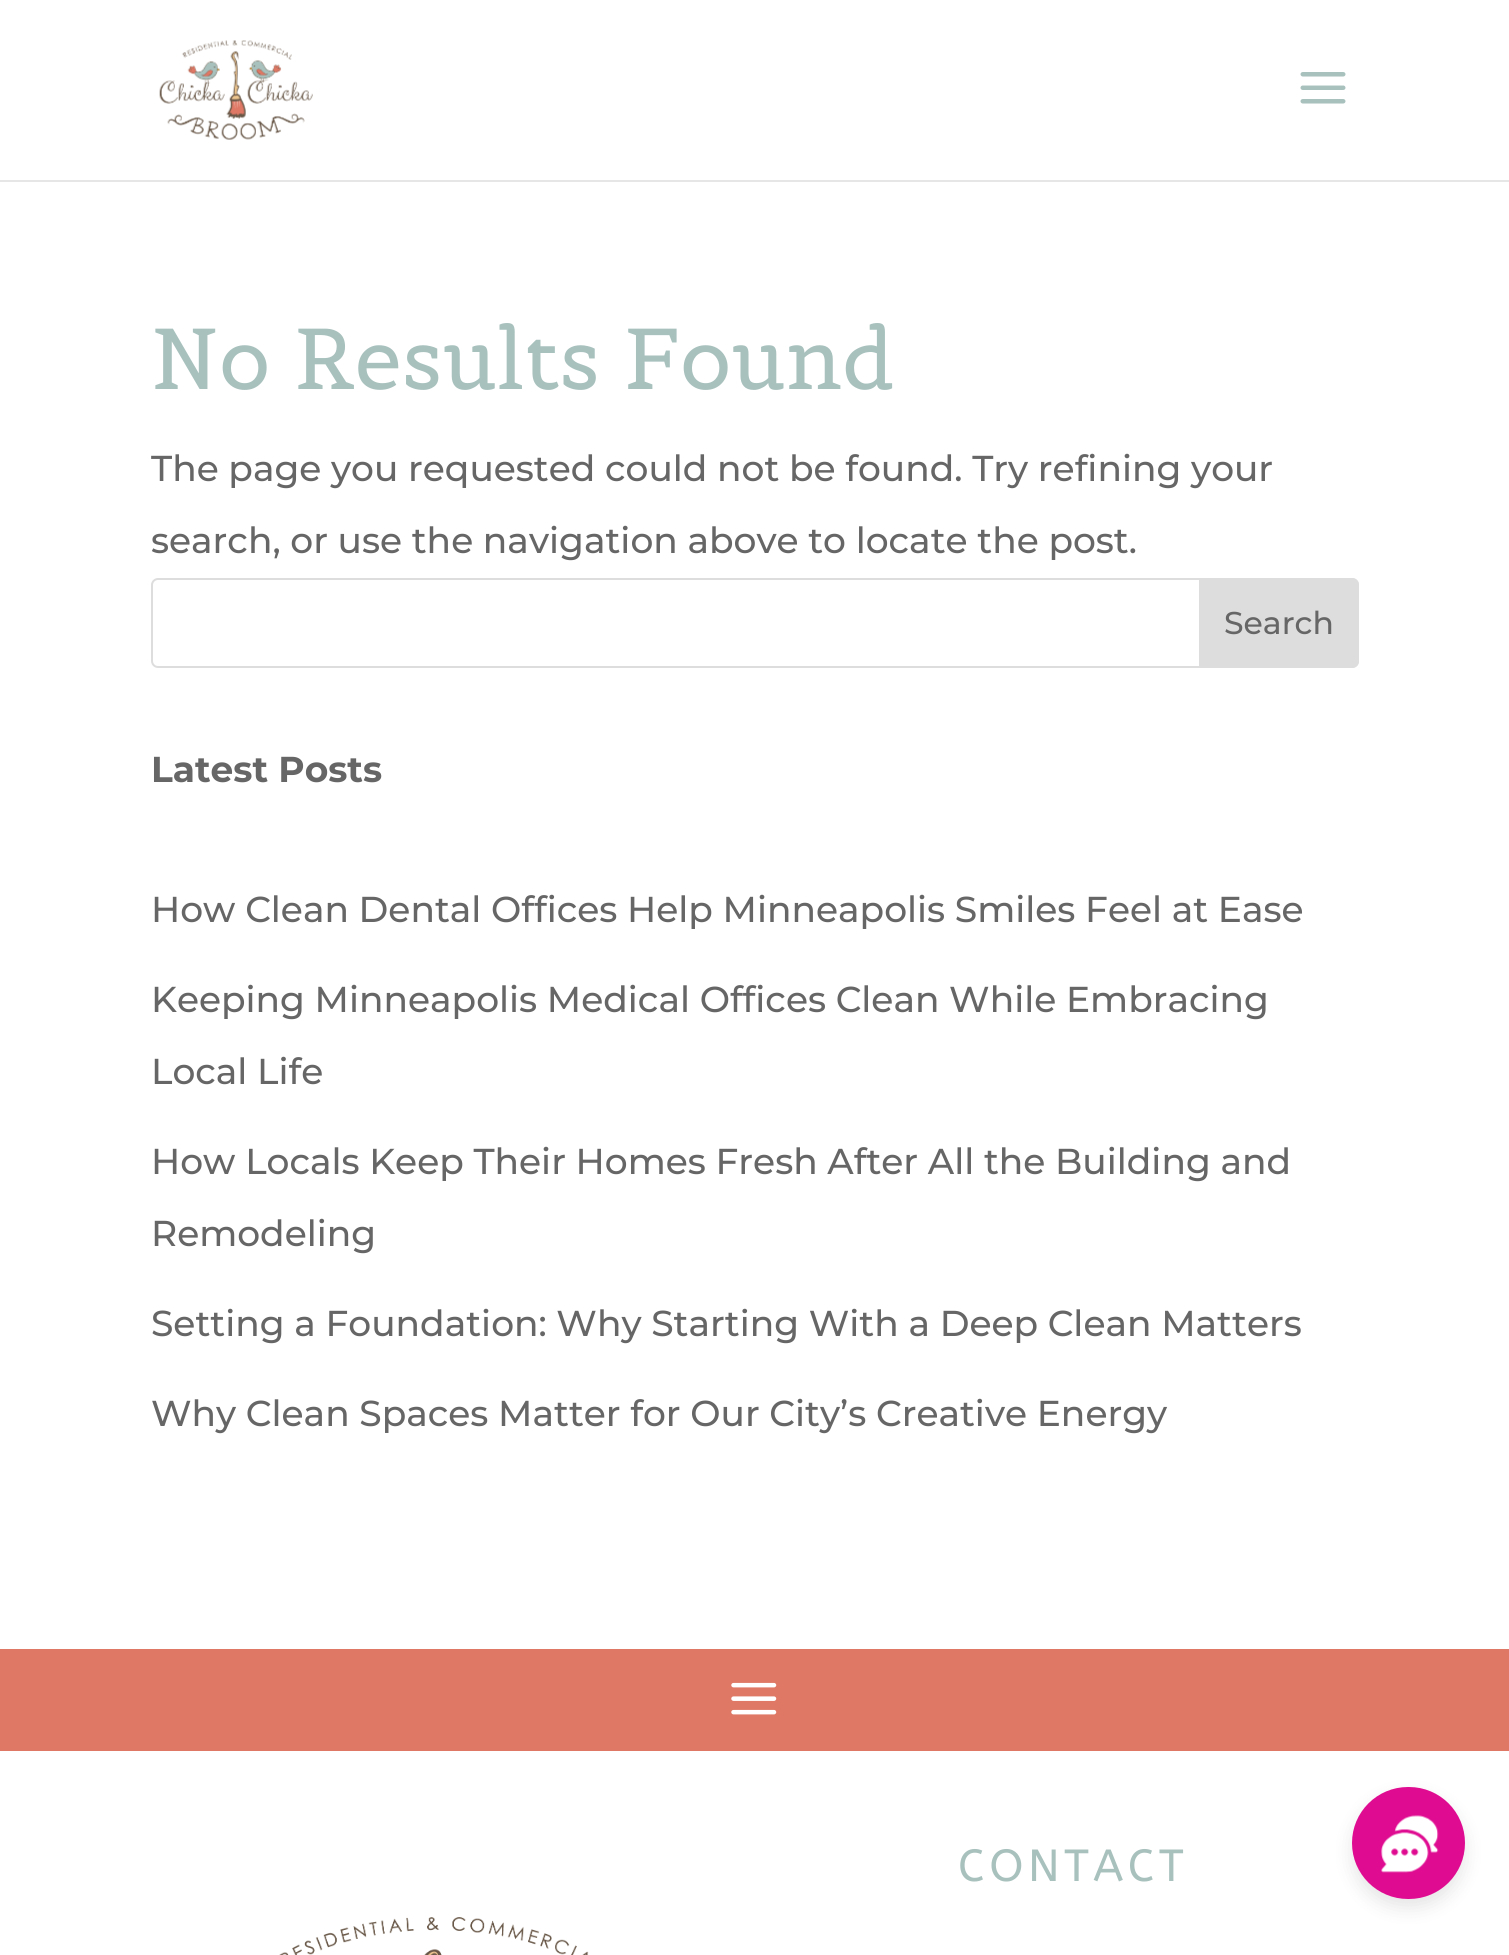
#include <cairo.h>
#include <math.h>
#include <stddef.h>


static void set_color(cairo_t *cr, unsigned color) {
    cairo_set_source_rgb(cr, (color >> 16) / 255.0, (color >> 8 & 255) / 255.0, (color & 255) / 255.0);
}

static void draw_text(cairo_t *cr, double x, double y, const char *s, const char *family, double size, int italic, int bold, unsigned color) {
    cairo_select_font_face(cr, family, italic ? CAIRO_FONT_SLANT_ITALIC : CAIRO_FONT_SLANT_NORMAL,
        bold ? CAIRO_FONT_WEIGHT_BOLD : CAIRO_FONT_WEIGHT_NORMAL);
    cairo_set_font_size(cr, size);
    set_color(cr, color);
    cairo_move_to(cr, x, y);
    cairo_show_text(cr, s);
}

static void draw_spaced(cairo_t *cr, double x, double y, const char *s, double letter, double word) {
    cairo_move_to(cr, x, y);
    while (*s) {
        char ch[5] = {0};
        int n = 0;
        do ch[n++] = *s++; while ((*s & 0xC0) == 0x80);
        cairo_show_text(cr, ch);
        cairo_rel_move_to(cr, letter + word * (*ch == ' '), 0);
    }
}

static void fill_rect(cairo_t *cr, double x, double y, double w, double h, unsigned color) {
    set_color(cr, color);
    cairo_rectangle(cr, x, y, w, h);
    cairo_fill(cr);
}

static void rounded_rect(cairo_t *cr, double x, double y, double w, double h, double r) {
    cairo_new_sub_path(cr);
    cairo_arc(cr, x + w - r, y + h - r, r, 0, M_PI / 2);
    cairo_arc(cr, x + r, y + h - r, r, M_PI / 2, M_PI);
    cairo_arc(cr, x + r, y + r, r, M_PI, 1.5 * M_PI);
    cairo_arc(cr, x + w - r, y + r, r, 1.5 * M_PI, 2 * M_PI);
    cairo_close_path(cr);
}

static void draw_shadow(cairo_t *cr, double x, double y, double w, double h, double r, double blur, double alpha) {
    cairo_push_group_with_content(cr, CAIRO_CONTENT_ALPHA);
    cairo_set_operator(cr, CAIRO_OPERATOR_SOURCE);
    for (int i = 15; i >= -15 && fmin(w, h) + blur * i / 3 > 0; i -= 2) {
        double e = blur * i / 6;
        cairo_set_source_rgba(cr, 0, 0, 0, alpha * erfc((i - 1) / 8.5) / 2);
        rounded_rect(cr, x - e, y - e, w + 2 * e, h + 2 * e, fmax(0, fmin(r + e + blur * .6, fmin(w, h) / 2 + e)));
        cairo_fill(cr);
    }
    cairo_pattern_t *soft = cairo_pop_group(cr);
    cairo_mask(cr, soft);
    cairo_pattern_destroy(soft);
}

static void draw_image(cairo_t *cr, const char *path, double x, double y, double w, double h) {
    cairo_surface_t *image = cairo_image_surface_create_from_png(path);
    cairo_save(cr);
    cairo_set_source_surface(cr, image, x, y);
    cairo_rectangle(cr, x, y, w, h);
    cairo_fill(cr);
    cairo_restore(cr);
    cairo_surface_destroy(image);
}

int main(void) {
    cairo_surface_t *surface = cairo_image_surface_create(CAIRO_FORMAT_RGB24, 1509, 1955);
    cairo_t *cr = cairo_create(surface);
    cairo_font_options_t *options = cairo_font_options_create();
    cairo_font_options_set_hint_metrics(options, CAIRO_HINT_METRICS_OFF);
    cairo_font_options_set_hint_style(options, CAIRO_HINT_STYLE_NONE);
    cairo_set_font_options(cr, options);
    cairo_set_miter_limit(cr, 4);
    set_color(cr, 0xFFFFFF);
    cairo_paint(cr);
    set_color(cr, 0xE6E6E6);
    cairo_new_path(cr);
    cairo_move_to(cr, 0, 180);
    cairo_line_to(cr, 0, 182);
    cairo_line_to(cr, 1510, 182);
    cairo_line_to(cr, 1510, 2);
    cairo_line_to(cr, 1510, 180);
    cairo_close_path(cr);
    cairo_fill(cr);
    draw_image(cr, "assets/img1.png", 159, 40, 154, 100);
    draw_image(cr, "assets/img2.png", 1300, 72, 46, 32);
    draw_text(cr, 151, 389, "No Results Found", "Belgrano", 85.5, 0, 0, 0xA8C1BD);
    draw_text(cr, 151, 481, "The page you requested could not be found. Try refining your", "Montserrat Medium", 36, 0, 0, 0x666666);
    draw_text(cr, 151, 553, "search, or use the navigation above to locate the post.", "Montserrat Medium", 36, 0, 0, 0x666666);
    rounded_rect(cr, 152, 579, 1206, 88, 6);
    set_color(cr, 0xDDDDDD);
    cairo_stroke(cr);
    cairo_new_path(cr);
    cairo_move_to(cr, 1200, 579);
    cairo_line_to(cr, 1352, 579);
    cairo_curve_to(cr, 1355.5, 579, 1358, 581.5, 1358, 585);
    cairo_line_to(cr, 1358, 661);
    cairo_curve_to(cr, 1358, 664.5, 1355.5, 667, 1352, 667);
    cairo_line_to(cr, 1200, 667);
    cairo_close_path(cr);
    cairo_fill_preserve(cr);
    cairo_stroke(cr);
    draw_text(cr, 1224, 634, "Search", "Montserrat Medium", 31.5, 0, 0, 0x666666);
    draw_text(cr, 151, 782, "Latest Posts", "Montserrat", 36, 0, 1, 0x666666);
    draw_text(cr, 151, 922, "How Clean Dental Offices Help Minneapolis Smiles Feel at Ease", "Montserrat Medium", 36, 0, 0, 0x666666);
    draw_text(cr, 151, 1012, "Keeping Minneapolis Medical Offices Clean While Embracing", "Montserrat Medium", 36, 0, 0, 0x666666);
    draw_text(cr, 151, 1084, "Local Life", "Montserrat Medium", 36, 0, 0, 0x666666);
    draw_text(cr, 151, 1174, "How Locals Keep Their Homes Fresh After All the Building and", "Montserrat Medium", 36, 0, 0, 0x666666);
    draw_text(cr, 151, 1246, "Remodeling", "Montserrat Medium", 36, 0, 0, 0x666666);
    draw_text(cr, 151, 1336, "Setting a Foundation: Why Starting With a Deep Clean Matters", "Montserrat Medium", 36, 0, 0, 0x666666);
    draw_text(cr, 151, 1426, "Why Clean Spaces Matter for Our City’s Creative Energy", "Montserrat Medium", 36, 0, 0, 0x666666);
    fill_rect(cr, 0, 1649, 1509, 102, 0xDF7865);
    draw_image(cr, "assets/img3.png", 731, 1682, 46, 33);
    cairo_select_font_face(cr, "ABeeZee", CAIRO_FONT_SLANT_NORMAL, CAIRO_FONT_WEIGHT_NORMAL);
    cairo_set_font_size(cr, 45);
    set_color(cr, 0xA8C1BD);
    draw_spaced(cr, 958, 1881, "CONTACT", 4.5, 0);
    draw_image(cr, "assets/img4.png", 279, 1917, 310, 38);
    set_color(cr, 0x000000);
    draw_shadow(cr, 1352, 1796, 113, 112, 56, 9, 0.1);
    set_color(cr, 0xDF0C91);
    rounded_rect(cr, 1352, 1787, 113, 112, 56);
    cairo_fill(cr);
    draw_image(cr, "assets/img5.png", 1381, 1815, 58, 58);
    cairo_surface_write_to_png(surface, "output.png");
    cairo_font_options_destroy(options);
    cairo_destroy(cr);
    cairo_surface_destroy(surface);
    return 0;
}
